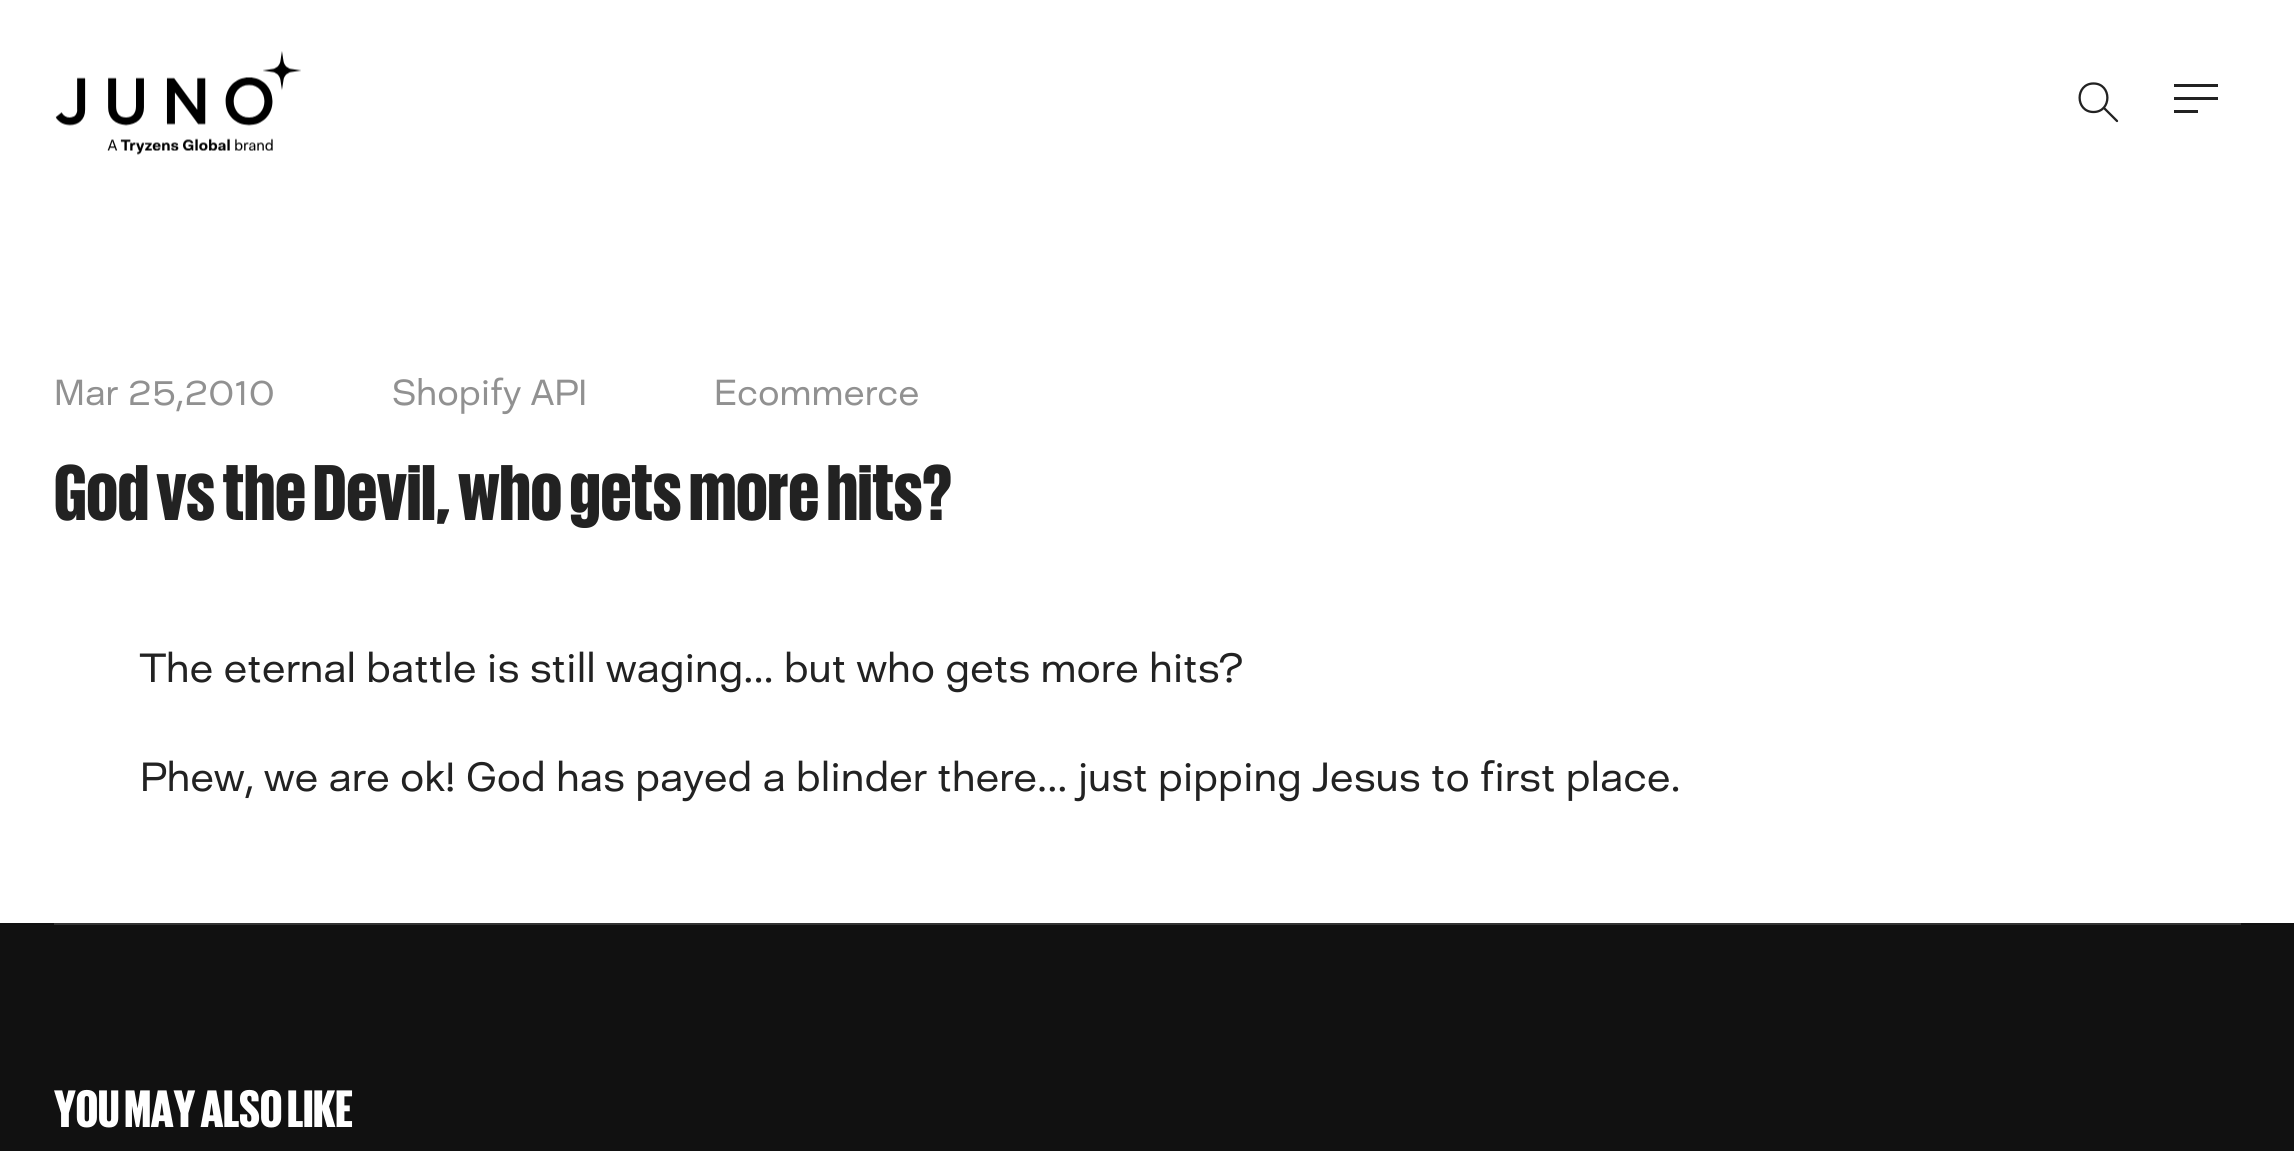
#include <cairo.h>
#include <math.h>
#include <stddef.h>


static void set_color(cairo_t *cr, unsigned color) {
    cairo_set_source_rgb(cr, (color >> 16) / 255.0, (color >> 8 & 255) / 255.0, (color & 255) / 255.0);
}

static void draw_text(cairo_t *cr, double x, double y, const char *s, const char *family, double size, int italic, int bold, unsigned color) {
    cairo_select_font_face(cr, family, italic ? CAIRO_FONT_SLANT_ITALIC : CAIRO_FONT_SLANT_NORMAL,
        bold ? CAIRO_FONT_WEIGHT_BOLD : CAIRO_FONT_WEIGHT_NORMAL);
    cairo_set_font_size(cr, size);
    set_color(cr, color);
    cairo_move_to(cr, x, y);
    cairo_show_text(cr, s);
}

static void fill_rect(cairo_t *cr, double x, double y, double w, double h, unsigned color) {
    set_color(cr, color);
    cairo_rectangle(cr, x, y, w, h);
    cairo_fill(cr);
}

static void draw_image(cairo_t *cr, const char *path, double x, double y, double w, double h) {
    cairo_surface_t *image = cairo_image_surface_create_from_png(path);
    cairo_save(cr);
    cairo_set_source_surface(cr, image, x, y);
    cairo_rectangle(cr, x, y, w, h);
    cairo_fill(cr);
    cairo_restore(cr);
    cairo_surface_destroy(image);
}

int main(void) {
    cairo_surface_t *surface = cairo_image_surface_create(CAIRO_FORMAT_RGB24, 2294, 1151);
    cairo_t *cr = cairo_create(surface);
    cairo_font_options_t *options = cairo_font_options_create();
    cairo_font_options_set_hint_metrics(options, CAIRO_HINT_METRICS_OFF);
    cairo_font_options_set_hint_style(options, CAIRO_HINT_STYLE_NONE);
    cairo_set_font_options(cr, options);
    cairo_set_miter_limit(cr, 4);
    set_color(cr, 0xFFFFFF);
    cairo_paint(cr);
    draw_image(cr, "assets/img1.png", 55, 51, 246, 104);
    cairo_new_path(cr);
    cairo_move_to(cr, 2104, 108);
    cairo_line_to(cr, 2117, 121);
    cairo_move_to(cr, 2093.5, 112);
    cairo_curve_to(cr, 2112, 112, 2112, 83.5, 2093.5, 83.5);
    cairo_curve_to(cr, 2075, 83.5, 2075, 112, 2093.5, 112);
    cairo_close_path(cr);
    set_color(cr, 0x222222);
    cairo_set_line_width(cr, 2.3);
    cairo_set_line_cap(cr, CAIRO_LINE_CAP_ROUND);
    cairo_set_line_join(cr, CAIRO_LINE_JOIN_ROUND);
    cairo_stroke(cr);
    cairo_new_path(cr);
    cairo_move_to(cr, 2174, 87);
    cairo_line_to(cr, 2174, 84);
    cairo_line_to(cr, 2218, 84);
    cairo_line_to(cr, 2218, 87);
    cairo_close_path(cr);
    cairo_move_to(cr, 2218, 97);
    cairo_line_to(cr, 2218, 100);
    cairo_line_to(cr, 2174, 100);
    cairo_line_to(cr, 2174, 97);
    cairo_close_path(cr);
    cairo_move_to(cr, 2174, 110);
    cairo_line_to(cr, 2198, 110);
    cairo_line_to(cr, 2198, 113);
    cairo_line_to(cr, 2174, 113);
    cairo_close_path(cr);
    cairo_fill(cr);
    draw_text(cr, 54, 405, "Mar 25,2010", "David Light", 36, 0, 0, 0x919191);
    draw_text(cr, 392, 405, "Shopify API", "David Light", 36, 0, 0, 0x919191);
    draw_text(cr, 714, 405, "Ecommerce", "David Light", 36, 0, 0, 0x919191);
    draw_text(cr, 54, 520, "God vs the Devil, who gets more hits?", "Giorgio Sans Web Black", 81, 0, 0, 0x222222);
    draw_text(cr, 140, 682, "The eternal battle is still waging... but who gets more hits?", "David Light", 40.5, 0, 0, 0x222222);
    draw_text(cr, 140, 791, "Phew, we are ok! God has payed a blinder there... just pipping Jesus to first place.", "David Light", 40.5, 0, 0, 0x222222);
    fill_rect(cr, 0, 923, 2294, 228, 0x111111);
    fill_rect(cr, 54, 923, 2187, 2, 0x333333);
    draw_text(cr, 54, 1127, "YOU MAY ALSO LIKE", "Giorgio Sans Web Black", 54, 0, 0, 0xFFFFFF);
    cairo_surface_write_to_png(surface, "output.png");
    cairo_font_options_destroy(options);
    cairo_destroy(cr);
    cairo_surface_destroy(surface);
    return 0;
}
